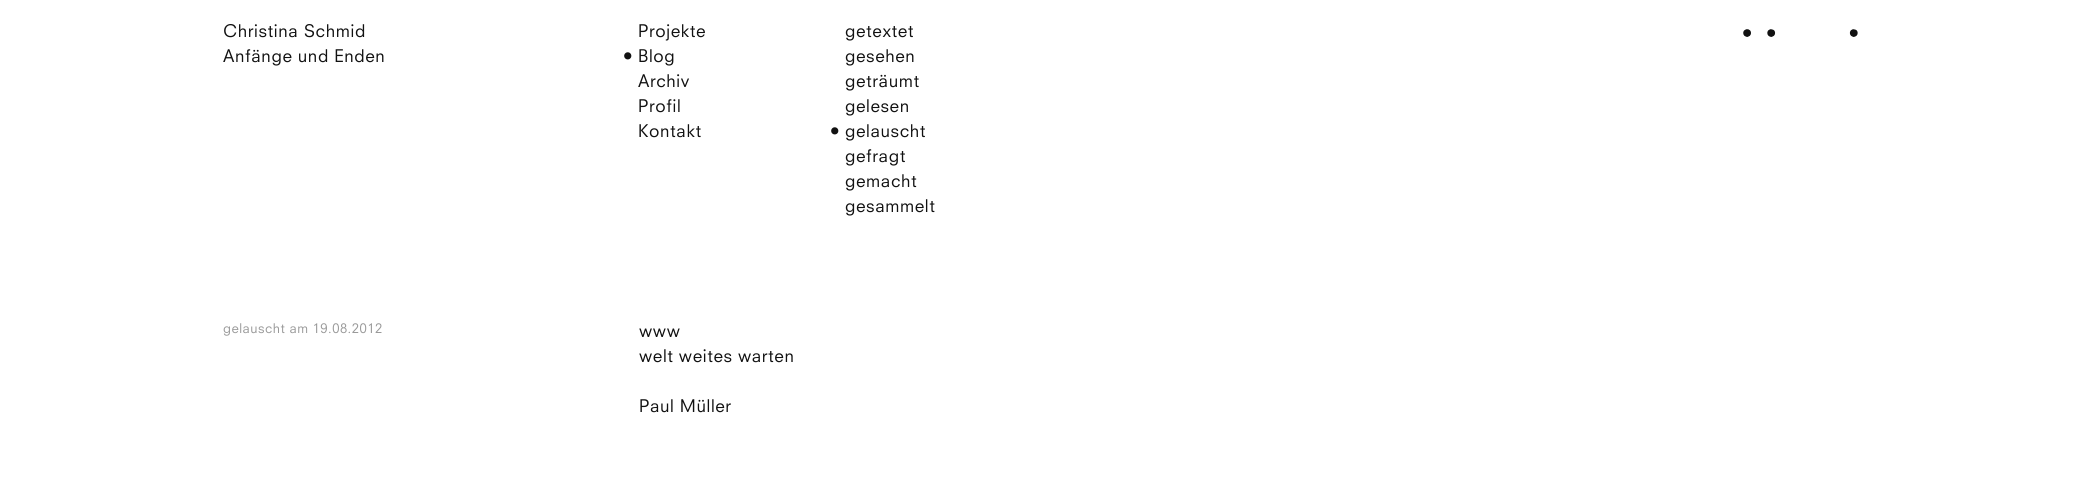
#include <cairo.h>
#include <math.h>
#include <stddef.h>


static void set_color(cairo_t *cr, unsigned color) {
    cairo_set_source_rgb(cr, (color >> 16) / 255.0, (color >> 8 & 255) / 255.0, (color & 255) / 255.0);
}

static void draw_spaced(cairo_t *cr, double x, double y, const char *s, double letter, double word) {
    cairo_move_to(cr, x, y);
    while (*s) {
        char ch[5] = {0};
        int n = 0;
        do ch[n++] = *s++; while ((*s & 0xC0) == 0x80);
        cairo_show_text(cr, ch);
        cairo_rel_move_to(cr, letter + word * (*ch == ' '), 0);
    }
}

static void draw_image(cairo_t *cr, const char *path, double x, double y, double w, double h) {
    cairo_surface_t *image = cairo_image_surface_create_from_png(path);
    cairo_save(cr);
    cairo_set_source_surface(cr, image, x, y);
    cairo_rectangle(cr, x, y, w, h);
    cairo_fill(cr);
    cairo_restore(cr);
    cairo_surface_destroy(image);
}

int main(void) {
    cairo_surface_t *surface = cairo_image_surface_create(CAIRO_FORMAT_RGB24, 2081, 489);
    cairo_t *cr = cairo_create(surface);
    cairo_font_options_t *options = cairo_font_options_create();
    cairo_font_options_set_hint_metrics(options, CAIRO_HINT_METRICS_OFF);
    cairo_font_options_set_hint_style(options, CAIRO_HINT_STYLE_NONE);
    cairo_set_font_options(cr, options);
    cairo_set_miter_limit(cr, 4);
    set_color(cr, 0xFFFFFF);
    cairo_paint(cr);
    cairo_select_font_face(cr, "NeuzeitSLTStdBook", CAIRO_FONT_SLANT_NORMAL, CAIRO_FONT_WEIGHT_NORMAL);
    cairo_set_font_size(cr, 17);
    set_color(cr, 0x111111);
    draw_spaced(cr, 223, 37, "Christina Schmid", 0.6, 0);
    draw_spaced(cr, 223, 62, "Anfänge und Enden", 0.6, 0);
    draw_spaced(cr, 638, 37, "Projekte", 0.6, 0);
    cairo_set_font_size(cr, 19);
    draw_spaced(cr, 623, 63, "•", 0.6, 0);
    cairo_set_font_size(cr, 17);
    draw_spaced(cr, 638, 62, "Blog", 0.6, 0);
    draw_spaced(cr, 638, 87, "Archiv", 0.6, 0);
    draw_spaced(cr, 638, 112, "Profil", 0.6, 0);
    draw_spaced(cr, 638, 137, "Kontakt", 0.6, 0);
    draw_spaced(cr, 845, 37, "getextet", 0.6, 0);
    draw_spaced(cr, 845, 62, "gesehen", 0.6, 0);
    draw_spaced(cr, 845, 87, "geträumt", 0.6, 0);
    draw_spaced(cr, 845, 112, "gelesen", 0.6, 0);
    cairo_set_font_size(cr, 19);
    draw_spaced(cr, 830, 138, "•", 0.6, 0);
    cairo_set_font_size(cr, 17);
    draw_spaced(cr, 845, 137, "gelauscht", 0.6, 0);
    draw_spaced(cr, 845, 162, "gefragt", 0.6, 0);
    draw_spaced(cr, 845, 187, "gemacht", 0.6, 0);
    draw_spaced(cr, 845, 212, "gesammelt", 0.6, 0);
    draw_image(cr, "assets/img1.png", 1743, 29, 115, 8);
    cairo_set_font_size(cr, 13);
    set_color(cr, 0x999999);
    draw_spaced(cr, 223, 333, "gelauscht am 19.08.2012", 0.5, 0);
    cairo_set_font_size(cr, 17);
    set_color(cr, 0x111111);
    draw_spaced(cr, 639, 337, "www", 0.6, 0);
    draw_spaced(cr, 639, 362, "welt weites warten", 0.6, 0);
    draw_spaced(cr, 639, 412, "Paul Müller", 0.6, 0);
    cairo_surface_write_to_png(surface, "output.png");
    cairo_font_options_destroy(options);
    cairo_destroy(cr);
    cairo_surface_destroy(surface);
    return 0;
}
